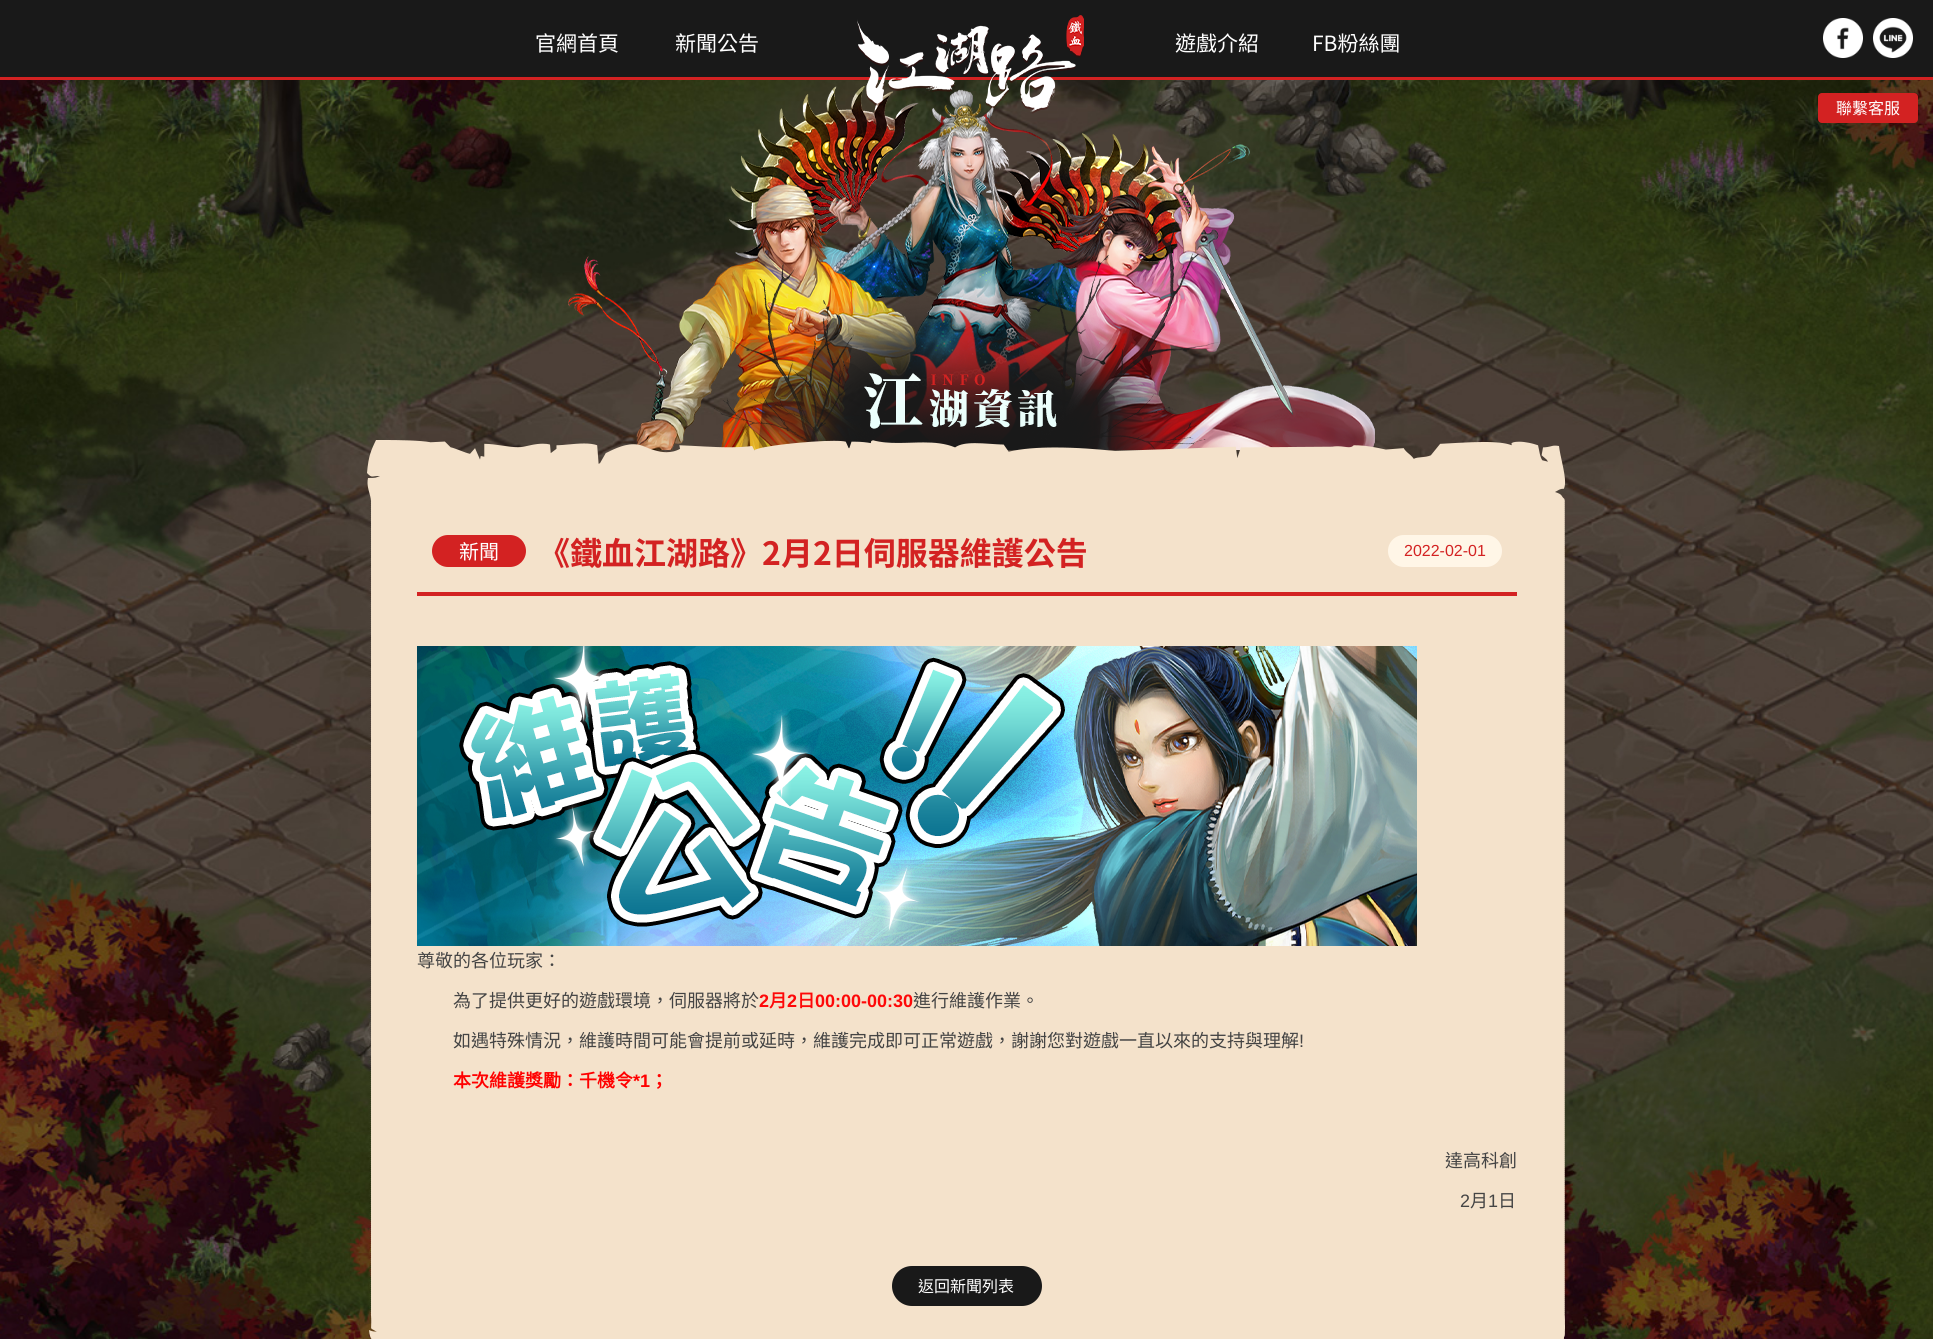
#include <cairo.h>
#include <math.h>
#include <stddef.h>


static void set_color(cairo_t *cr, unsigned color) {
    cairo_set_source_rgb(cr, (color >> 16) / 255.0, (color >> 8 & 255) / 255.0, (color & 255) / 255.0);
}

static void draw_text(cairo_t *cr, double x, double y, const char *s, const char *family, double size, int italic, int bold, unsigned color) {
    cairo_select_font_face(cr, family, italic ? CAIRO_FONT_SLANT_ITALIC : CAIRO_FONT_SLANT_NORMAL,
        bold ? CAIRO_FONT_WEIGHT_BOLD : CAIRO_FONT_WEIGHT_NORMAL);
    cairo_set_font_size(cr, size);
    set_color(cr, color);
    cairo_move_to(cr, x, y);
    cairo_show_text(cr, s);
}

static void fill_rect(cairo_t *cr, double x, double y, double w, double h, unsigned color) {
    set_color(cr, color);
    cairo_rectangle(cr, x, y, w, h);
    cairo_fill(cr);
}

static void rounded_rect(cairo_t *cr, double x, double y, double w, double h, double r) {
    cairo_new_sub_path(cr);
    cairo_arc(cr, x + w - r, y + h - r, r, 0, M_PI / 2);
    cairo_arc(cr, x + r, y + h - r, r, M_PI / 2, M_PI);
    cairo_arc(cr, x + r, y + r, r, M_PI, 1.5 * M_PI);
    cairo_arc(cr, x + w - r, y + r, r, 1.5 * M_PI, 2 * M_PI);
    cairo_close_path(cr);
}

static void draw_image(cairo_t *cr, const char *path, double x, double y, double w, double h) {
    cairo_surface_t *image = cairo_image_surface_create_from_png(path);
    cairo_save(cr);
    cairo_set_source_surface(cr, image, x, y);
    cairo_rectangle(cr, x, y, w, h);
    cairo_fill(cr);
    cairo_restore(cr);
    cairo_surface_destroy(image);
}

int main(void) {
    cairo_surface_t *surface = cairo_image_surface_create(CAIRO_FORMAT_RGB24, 1933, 1339);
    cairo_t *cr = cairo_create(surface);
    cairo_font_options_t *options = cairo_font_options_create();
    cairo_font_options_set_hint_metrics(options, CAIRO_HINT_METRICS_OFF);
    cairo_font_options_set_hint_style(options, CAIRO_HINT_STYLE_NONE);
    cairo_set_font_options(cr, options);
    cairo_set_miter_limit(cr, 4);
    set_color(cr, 0xFFFFFF);
    cairo_paint(cr);
    fill_rect(cr, 0, 0, 1933, 77, 0x191919);
    fill_rect(cr, 0, 77, 1933, 3, 0xD32222);
    draw_image(cr, "assets/img4.png", 0, 80, 1933, 1259);
    draw_image(cr, "assets/img5.png", 568, 86, 807, 364);
    draw_image(cr, "assets/img1.png", 857, 15, 227, 99);
    draw_text(cr, 535, 51, "官網首頁", "Noto Sans TC", 21, 0, 0, 0xFFFFFF);
    draw_text(cr, 675, 51, "新聞公告", "Noto Sans TC", 21, 0, 0, 0xFFFFFF);
    draw_text(cr, 1175, 51, "遊戲介紹", "Noto Sans TC", 21, 0, 0, 0xFFFFFF);
    draw_text(cr, 1312, 51, "FB粉絲團", "Noto Sans TC", 21, 0, 0, 0xFFFFFF);
    draw_image(cr, "assets/img2.png", 1823, 18, 40, 40);
    draw_image(cr, "assets/img3.png", 1873, 18, 40, 40);
    set_color(cr, 0xD32222);
    rounded_rect(cr, 1818, 93, 100, 30, 4);
    cairo_fill(cr);
    draw_text(cr, 1836, 114, "聯繫客服", "Noto Sans CJK TC", 16, 0, 0, 0xFFFFFF);
    draw_image(cr, "assets/img6.png", 367, 440, 1199, 60);
    draw_image(cr, "assets/img7.png", 370, 500, 1195, 816);
    fill_rect(cr, 417, 592, 1100, 4, 0xD32222);
    rounded_rect(cr, 432, 535, 94, 32, 16);
    cairo_fill(cr);
    draw_text(cr, 459, 559, "新聞", "Noto Sans TC", 20, 0, 0, 0xFFFFFF);
    draw_text(cr, 538, 565, "《鐵血江湖路》2月2日伺服器維護公告", "Noto Sans TC", 32, 0, 1, 0xD32222);
    set_color(cr, 0xFFF6E7);
    rounded_rect(cr, 1388, 535, 114, 32, 16);
    cairo_fill(cr);
    draw_text(cr, 1404, 556, "2022-02-01", "Liberation Sans", 16, 0, 0, 0xD32222);
    draw_image(cr, "assets/img8.png", 417, 646, 1000, 300);
    draw_text(cr, 417, 967, "尊敬的各位玩家：", "Noto Sans CJK TC", 18, 0, 0, 0x444444);
    draw_text(cr, 453, 1007, "為了提供更好的遊戲環境，伺服器將於", "Noto Sans CJK TC", 18, 0, 0, 0x444444);
    draw_text(cr, 759, 1007, "2", "Liberation Sans", 18, 0, 1, 0xFE0808);
    draw_text(cr, 769, 1007, "月", "Noto Sans CJK TC", 18, 0, 1, 0xFE0808);
    draw_text(cr, 787, 1007, "2", "Liberation Sans", 18, 0, 1, 0xFE0808);
    draw_text(cr, 797, 1007, "日", "Noto Sans CJK TC", 18, 0, 1, 0xFE0808);
    draw_text(cr, 815, 1007, "00:00-00:30", "Liberation Sans", 18, 0, 1, 0xFE0808);
    draw_text(cr, 913, 1007, "進行維護作業。", "Noto Sans CJK TC", 18, 0, 0, 0x444444);
    draw_text(cr, 453, 1047, "如遇特殊情況，維護時間可能會提前或延時，維護完成即可正常遊戲，謝謝您對遊戲一直以來的支持與理解", "Noto Sans CJK TC", 18, 0, 0, 0x444444);
    draw_text(cr, 1299, 1047, "!", "Liberation Sans", 18, 0, 0, 0x444444);
    draw_text(cr, 453, 1087, "本次維護獎勵：千機令", "Noto Sans CJK TC", 18, 0, 1, 0xFF0000);
    draw_text(cr, 633, 1087, "*1", "Liberation Sans", 18, 0, 1, 0xFF0000);
    draw_text(cr, 650, 1087, "；", "Noto Sans CJK TC", 18, 0, 1, 0xFF0000);
    draw_text(cr, 1445, 1167, "達高科創", "Noto Sans CJK TC", 18, 0, 0, 0x444444);
    draw_text(cr, 1460, 1207, "2", "Liberation Sans", 18, 0, 0, 0x444444);
    draw_text(cr, 1470, 1207, "月", "Noto Sans CJK TC", 18, 0, 0, 0x444444);
    draw_text(cr, 1488, 1207, "1", "Liberation Sans", 18, 0, 0, 0x444444);
    draw_text(cr, 1498, 1207, "日", "Noto Sans CJK TC", 18, 0, 0, 0x444444);
    set_color(cr, 0x191919);
    rounded_rect(cr, 892, 1266, 150, 40, 20);
    cairo_fill(cr);
    draw_text(cr, 918, 1292, "返回新聞列表", "Noto Sans CJK TC", 16, 0, 0, 0xFFFFFF);
    draw_image(cr, "assets/img9.png", 369, 1316, 1196, 23);
    cairo_surface_write_to_png(surface, "output.png");
    cairo_font_options_destroy(options);
    cairo_destroy(cr);
    cairo_surface_destroy(surface);
    return 0;
}
